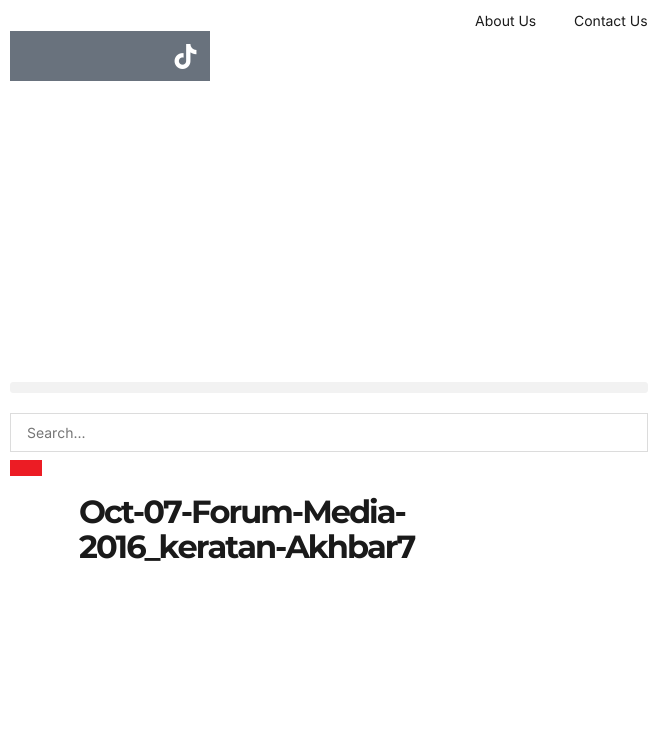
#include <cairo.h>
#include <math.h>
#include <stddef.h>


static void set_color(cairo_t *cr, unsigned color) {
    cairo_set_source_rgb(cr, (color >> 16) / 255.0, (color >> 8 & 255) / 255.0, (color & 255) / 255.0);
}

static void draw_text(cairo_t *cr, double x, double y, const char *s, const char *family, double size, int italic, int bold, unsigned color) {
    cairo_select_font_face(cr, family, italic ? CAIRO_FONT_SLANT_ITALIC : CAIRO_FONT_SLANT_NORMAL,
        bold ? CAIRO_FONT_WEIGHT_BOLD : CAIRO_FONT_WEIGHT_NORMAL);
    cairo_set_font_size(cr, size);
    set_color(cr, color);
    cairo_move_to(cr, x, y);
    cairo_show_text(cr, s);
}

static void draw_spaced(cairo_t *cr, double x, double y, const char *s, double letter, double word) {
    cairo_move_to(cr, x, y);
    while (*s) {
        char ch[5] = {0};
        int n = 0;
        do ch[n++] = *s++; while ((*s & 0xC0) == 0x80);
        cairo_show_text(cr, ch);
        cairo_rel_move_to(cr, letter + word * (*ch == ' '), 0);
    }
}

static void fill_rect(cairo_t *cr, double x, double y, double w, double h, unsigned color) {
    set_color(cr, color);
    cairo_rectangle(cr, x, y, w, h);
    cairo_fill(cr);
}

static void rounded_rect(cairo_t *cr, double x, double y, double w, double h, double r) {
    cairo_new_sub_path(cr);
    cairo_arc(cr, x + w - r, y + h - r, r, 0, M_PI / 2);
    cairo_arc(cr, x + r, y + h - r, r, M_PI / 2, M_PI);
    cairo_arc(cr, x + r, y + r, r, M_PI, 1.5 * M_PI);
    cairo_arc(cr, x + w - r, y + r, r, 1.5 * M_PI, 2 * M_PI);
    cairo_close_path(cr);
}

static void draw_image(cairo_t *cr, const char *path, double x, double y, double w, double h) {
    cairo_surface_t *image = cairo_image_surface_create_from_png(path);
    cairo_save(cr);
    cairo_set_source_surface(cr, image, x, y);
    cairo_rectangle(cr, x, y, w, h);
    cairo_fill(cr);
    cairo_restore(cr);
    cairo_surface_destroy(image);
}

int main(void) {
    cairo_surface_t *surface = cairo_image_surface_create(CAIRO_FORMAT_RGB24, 658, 754);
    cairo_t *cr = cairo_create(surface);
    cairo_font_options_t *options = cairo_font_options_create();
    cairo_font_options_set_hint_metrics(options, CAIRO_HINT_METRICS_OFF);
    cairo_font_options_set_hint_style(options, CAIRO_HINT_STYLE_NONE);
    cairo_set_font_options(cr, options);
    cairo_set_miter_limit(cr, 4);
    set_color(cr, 0xFFFFFF);
    cairo_paint(cr);
    draw_text(cr, 475, 26, "About Us", "Inter", 14, 0, 0, 0x1A1A1A);
    draw_text(cr, 574, 26, "Contact Us", "Inter", 14, 0, 0, 0x1A1A1A);
    fill_rect(cr, 10, 31, 200, 50, 0x69727D);
    draw_image(cr, "assets/img1.png", 174, 44, 23, 25);
    set_color(cr, 0xF2F2F2);
    rounded_rect(cr, 10, 382, 638, 11, 3);
    cairo_fill(cr);
    cairo_rectangle(cr, 10.5, 413.5, 637, 38);
    set_color(cr, 0xDCDCDC);
    cairo_set_line_width(cr, 1);
    cairo_stroke(cr);
    draw_text(cr, 27, 438, "Search...", "Inter", 14, 0, 0, 0x757575);
    fill_rect(cr, 10, 460, 32, 16, 0xEC1C24);
    cairo_select_font_face(cr, "Montserrat", CAIRO_FONT_SLANT_NORMAL, CAIRO_FONT_WEIGHT_BOLD);
    cairo_set_font_size(cr, 32);
    set_color(cr, 0x1A1A1A);
    draw_spaced(cr, 79, 523, "Oct-07-Forum-Media-", -2, 0);
    draw_spaced(cr, 79, 558, "2016_keratan-Akhbar7", -2, 0);
    cairo_surface_write_to_png(surface, "output.png");
    cairo_font_options_destroy(options);
    cairo_destroy(cr);
    cairo_surface_destroy(surface);
    return 0;
}
